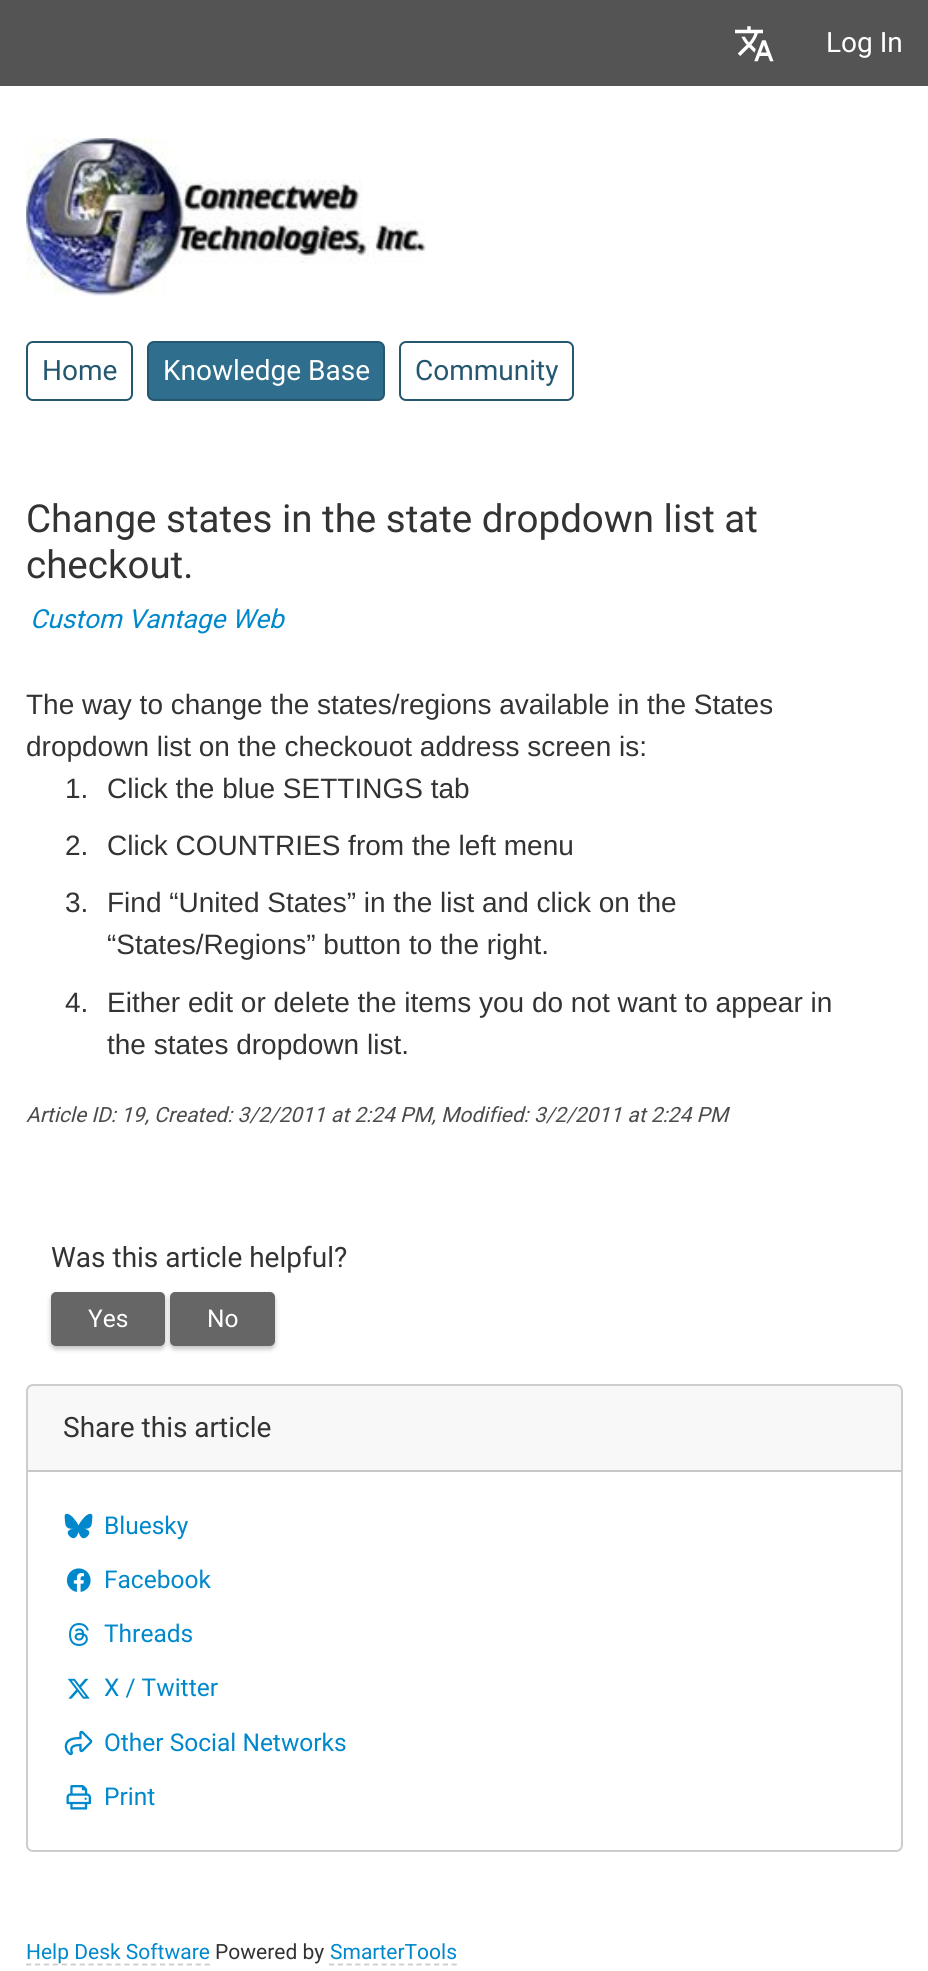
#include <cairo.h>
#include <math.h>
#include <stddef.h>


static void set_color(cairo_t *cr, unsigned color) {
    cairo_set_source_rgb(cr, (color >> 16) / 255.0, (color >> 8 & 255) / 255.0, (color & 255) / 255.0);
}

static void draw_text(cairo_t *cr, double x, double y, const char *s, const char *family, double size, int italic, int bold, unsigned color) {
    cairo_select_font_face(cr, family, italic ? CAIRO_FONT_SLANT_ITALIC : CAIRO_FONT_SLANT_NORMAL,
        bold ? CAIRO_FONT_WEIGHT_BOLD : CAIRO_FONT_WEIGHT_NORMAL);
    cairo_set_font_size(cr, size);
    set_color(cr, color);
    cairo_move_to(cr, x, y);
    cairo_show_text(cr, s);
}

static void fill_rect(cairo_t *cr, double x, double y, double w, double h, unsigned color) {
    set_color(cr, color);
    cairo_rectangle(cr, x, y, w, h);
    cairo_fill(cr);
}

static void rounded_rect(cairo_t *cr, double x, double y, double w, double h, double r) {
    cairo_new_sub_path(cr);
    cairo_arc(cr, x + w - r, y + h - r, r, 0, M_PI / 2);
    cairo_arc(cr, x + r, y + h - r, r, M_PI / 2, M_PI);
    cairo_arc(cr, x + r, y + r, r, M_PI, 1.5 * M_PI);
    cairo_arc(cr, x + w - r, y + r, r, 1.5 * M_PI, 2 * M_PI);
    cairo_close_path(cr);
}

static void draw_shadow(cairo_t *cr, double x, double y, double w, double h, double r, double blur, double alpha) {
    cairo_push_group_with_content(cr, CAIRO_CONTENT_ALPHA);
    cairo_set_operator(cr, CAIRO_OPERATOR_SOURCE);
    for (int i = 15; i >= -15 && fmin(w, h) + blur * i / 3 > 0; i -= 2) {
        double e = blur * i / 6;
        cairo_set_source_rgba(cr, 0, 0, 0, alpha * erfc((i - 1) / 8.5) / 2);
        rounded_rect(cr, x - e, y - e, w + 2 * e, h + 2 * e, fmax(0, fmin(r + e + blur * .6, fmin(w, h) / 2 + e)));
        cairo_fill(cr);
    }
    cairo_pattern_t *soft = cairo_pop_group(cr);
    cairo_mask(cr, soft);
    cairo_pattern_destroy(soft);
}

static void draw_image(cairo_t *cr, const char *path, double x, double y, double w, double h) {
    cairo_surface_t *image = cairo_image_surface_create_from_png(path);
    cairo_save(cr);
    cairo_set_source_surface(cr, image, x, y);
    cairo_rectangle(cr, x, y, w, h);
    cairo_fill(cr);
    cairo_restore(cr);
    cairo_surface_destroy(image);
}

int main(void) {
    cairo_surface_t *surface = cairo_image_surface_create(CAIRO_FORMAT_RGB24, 928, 1971);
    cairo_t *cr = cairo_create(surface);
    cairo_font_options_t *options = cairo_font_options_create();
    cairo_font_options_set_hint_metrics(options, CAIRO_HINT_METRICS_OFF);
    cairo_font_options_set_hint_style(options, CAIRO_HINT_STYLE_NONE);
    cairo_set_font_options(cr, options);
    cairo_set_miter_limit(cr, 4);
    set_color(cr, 0xFFFFFF);
    cairo_paint(cr);
    fill_rect(cr, 0, 0, 928, 86, 0x545454);
    draw_image(cr, "assets/img1.png", 735, 26, 39, 36);
    draw_text(cr, 826, 52, "Log In", "Roboto", 28, 0, 0, 0xFFFFFF);
    draw_image(cr, "assets/img2.png", 26, 138, 400, 158);
    rounded_rect(cr, 27, 342, 105, 58, 6);
    set_color(cr, 0x255870);
    cairo_stroke(cr);
    draw_text(cr, 42, 380, "Home", "Roboto", 28, 0, 0, 0x255870);
    set_color(cr, 0x2F6E8D);
    rounded_rect(cr, 148, 342, 236, 58, 6);
    cairo_fill_preserve(cr);
    set_color(cr, 0x255870);
    cairo_stroke(cr);
    draw_text(cr, 163, 380, "Knowledge Base", "Roboto", 28, 0, 0, 0xFFFFFF);
    rounded_rect(cr, 400, 342, 173, 58, 6);
    set_color(cr, 0x255870);
    cairo_stroke(cr);
    draw_text(cr, 415, 380, "Community", "Roboto", 28, 0, 0, 0x255870);
    draw_text(cr, 26, 532, "Change states in the state dropdown list at", "Roboto", 38.5, 0, 0, 0x333333);
    draw_text(cr, 26, 578, "checkout.", "Roboto", 38.5, 0, 0, 0x333333);
    draw_text(cr, 30, 628, "Custom Vantage Web", "Roboto", 26.25, 1, 0, 0x0088CC);
    draw_text(cr, 26, 714, "The way to change the states/regions available in the States", "Liberation Sans", 28, 0, 0, 0x333333);
    draw_text(cr, 26, 756, "dropdown list on the checkouot address screen is:", "Liberation Sans", 28, 0, 0, 0x333333);
    draw_text(cr, 65, 798, "1.", "Liberation Sans", 28, 0, 0, 0x333333);
    draw_text(cr, 107, 798, "Click the blue SETTINGS tab", "Liberation Sans", 28, 0, 0, 0x333333);
    draw_text(cr, 65, 855, "2.", "Liberation Sans", 28, 0, 0, 0x333333);
    draw_text(cr, 107, 855, "Click COUNTRIES from the left menu", "Liberation Sans", 28, 0, 0, 0x333333);
    draw_text(cr, 65, 912, "3.", "Liberation Sans", 28, 0, 0, 0x333333);
    draw_text(cr, 107, 912, "Find “United States” in the list and click on the", "Liberation Sans", 28, 0, 0, 0x333333);
    draw_text(cr, 107, 954, "“States/Regions” button to the right.", "Liberation Sans", 28, 0, 0, 0x333333);
    draw_text(cr, 65, 1012, "4.", "Liberation Sans", 28, 0, 0, 0x333333);
    draw_text(cr, 107, 1012, "Either edit or delete the items you do not want to appear in", "Liberation Sans", 28, 0, 0, 0x333333);
    draw_text(cr, 107, 1054, "the states dropdown list.", "Liberation Sans", 28, 0, 0, 0x333333);
    draw_text(cr, 26, 1122, "Article ID: 19, Created: 3/2/2011 at 2:24 PM, Modified: 3/2/2011 at 2:24 PM", "Roboto", 21, 1, 0, 0x4C4C4C);
    draw_text(cr, 51, 1267, "Was this article helpful?", "Roboto", 28, 0, 0, 0x333333);
    set_color(cr, 0x000000);
    draw_shadow(cr, 51, 1295, 114, 54, 5, 2.5, 0.25);
    set_color(cr, 0x666666);
    rounded_rect(cr, 52, 1293, 112, 52, 4);
    cairo_fill_preserve(cr);
    cairo_stroke(cr);
    draw_text(cr, 88, 1327, "Yes", "Roboto", 24.5, 0, 0, 0xFFFFFF);
    set_color(cr, 0x000000);
    draw_shadow(cr, 170, 1295, 105, 54, 5, 2.5, 0.25);
    set_color(cr, 0x666666);
    rounded_rect(cr, 171, 1293, 103, 52, 4);
    cairo_fill_preserve(cr);
    cairo_stroke(cr);
    draw_text(cr, 207, 1327, "No", "Roboto", 24.5, 0, 0, 0xFFFFFF);
    rounded_rect(cr, 27, 1385, 875, 466, 6);
    set_color(cr, 0xCDCDCD);
    cairo_stroke(cr);
    cairo_set_source_rgba(cr, 0, 0, 0, 0.03);
    cairo_rectangle(cr, 28, 1386, 873, 84);
    cairo_fill(cr);
    fill_rect(cr, 28, 1470, 873, 2, 0xC7C7C7);
    draw_text(cr, 63, 1437, "Share this article", "Roboto", 28, 0, 0, 0x333333);
    draw_image(cr, "assets/img3.png", 64, 1513, 29, 26);
    draw_text(cr, 104, 1534, "Bluesky", "Roboto", 24.5, 0, 0, 0x0088CC);
    draw_image(cr, "assets/img4.png", 66, 1568, 25, 24);
    draw_text(cr, 104, 1588, "Facebook", "Roboto", 24.5, 0, 0, 0x0088CC);
    draw_image(cr, "assets/img5.png", 69, 1623, 20, 23);
    draw_text(cr, 104, 1642, "Threads", "Roboto", 24.5, 0, 0, 0x0088CC);
    draw_image(cr, "assets/img6.png", 67, 1678, 23, 21);
    draw_text(cr, 104, 1696, "X / Twitter", "Roboto", 24.5, 0, 0, 0x0088CC);
    draw_image(cr, "assets/img7.png", 64, 1730, 29, 26);
    draw_text(cr, 104, 1751, "Other Social Networks", "Roboto", 24.5, 0, 0, 0x0088CC);
    draw_image(cr, "assets/img8.png", 66, 1785, 25, 25);
    draw_text(cr, 104, 1805, "Print", "Roboto", 24.5, 0, 0, 0x0088CC);
    cairo_new_path(cr);
    cairo_move_to(cr, 26, 1964.5);
    cairo_line_to(cr, 210, 1964.5);
    set_color(cr, 0xCCCCCC);
    cairo_set_line_width(cr, 1.8);
    cairo_set_dash(cr, (double[]){5.25, 3.68}, 2, 0);
    cairo_stroke(cr);
    draw_text(cr, 26, 1959, "Help Desk Software", "Roboto", 21, 0, 0, 0x0088CC);
    draw_text(cr, 215, 1959, "Powered by", "Roboto", 21, 0, 0, 0x333333);
    draw_text(cr, 330, 1959, "SmarterTools", "Roboto", 21, 0, 0, 0x0088CC);
    cairo_new_path(cr);
    cairo_move_to(cr, 329, 1964.5);
    cairo_line_to(cr, 457, 1964.5);
    set_color(cr, 0xCCCCCC);
    cairo_set_dash(cr, (double[]){5.25, 3.5}, 2, 0);
    cairo_stroke(cr);
    cairo_surface_write_to_png(surface, "output.png");
    cairo_font_options_destroy(options);
    cairo_destroy(cr);
    cairo_surface_destroy(surface);
    return 0;
}
